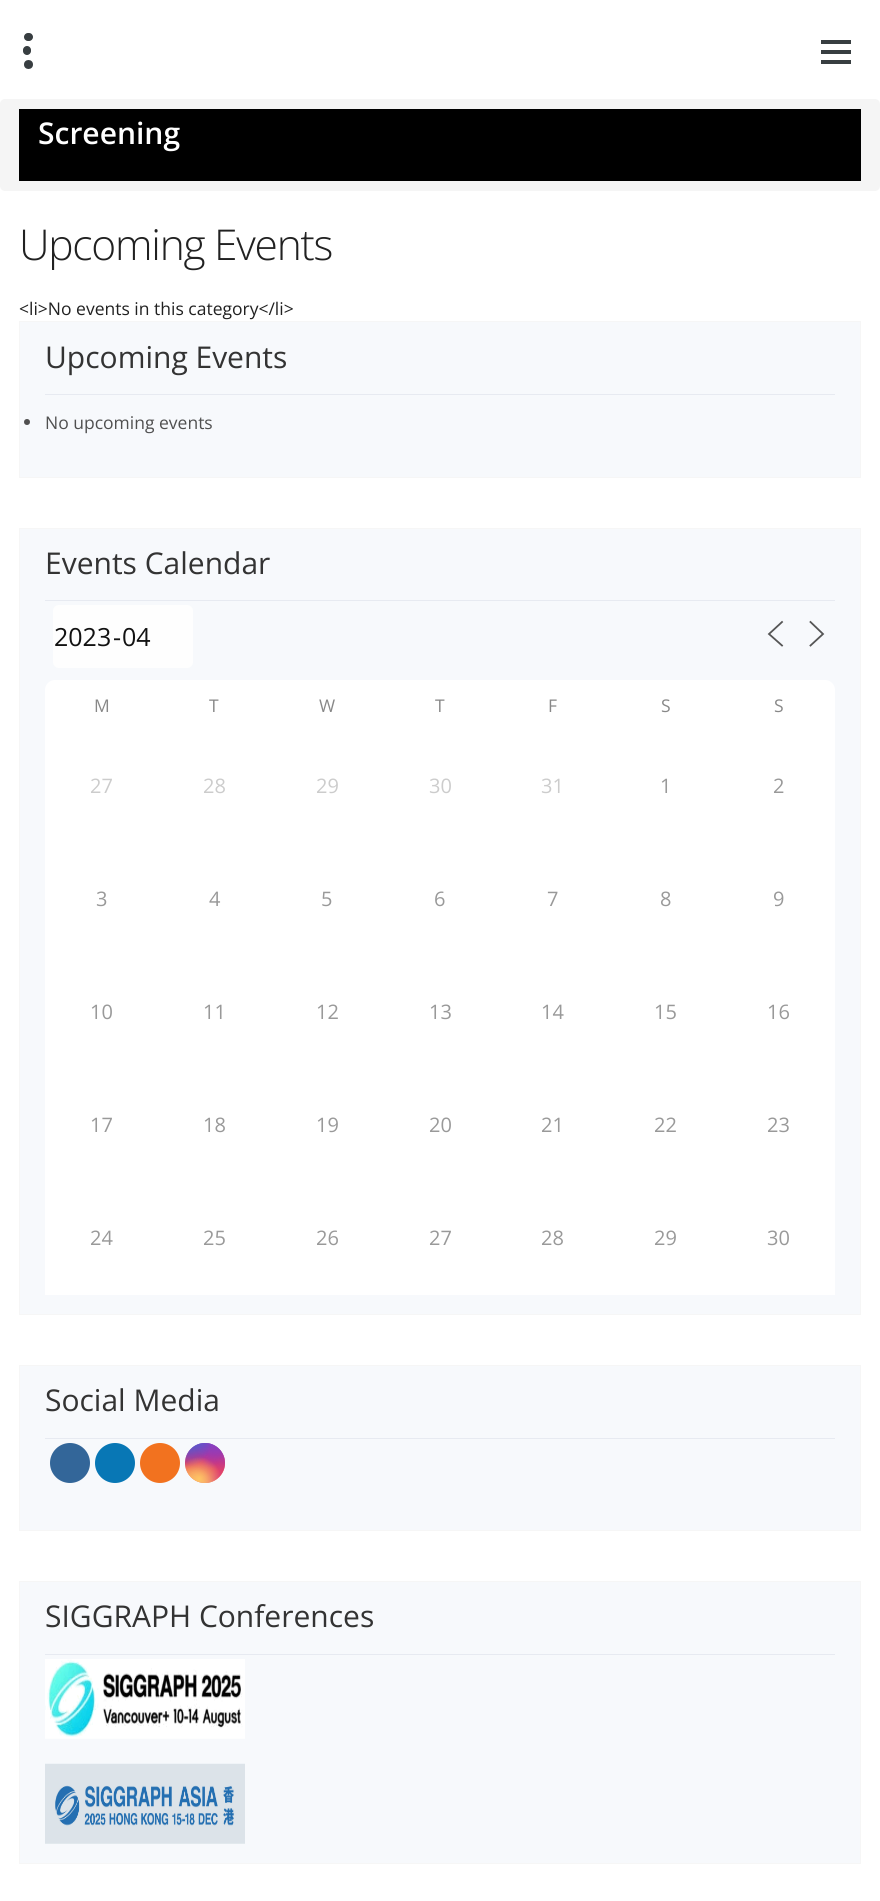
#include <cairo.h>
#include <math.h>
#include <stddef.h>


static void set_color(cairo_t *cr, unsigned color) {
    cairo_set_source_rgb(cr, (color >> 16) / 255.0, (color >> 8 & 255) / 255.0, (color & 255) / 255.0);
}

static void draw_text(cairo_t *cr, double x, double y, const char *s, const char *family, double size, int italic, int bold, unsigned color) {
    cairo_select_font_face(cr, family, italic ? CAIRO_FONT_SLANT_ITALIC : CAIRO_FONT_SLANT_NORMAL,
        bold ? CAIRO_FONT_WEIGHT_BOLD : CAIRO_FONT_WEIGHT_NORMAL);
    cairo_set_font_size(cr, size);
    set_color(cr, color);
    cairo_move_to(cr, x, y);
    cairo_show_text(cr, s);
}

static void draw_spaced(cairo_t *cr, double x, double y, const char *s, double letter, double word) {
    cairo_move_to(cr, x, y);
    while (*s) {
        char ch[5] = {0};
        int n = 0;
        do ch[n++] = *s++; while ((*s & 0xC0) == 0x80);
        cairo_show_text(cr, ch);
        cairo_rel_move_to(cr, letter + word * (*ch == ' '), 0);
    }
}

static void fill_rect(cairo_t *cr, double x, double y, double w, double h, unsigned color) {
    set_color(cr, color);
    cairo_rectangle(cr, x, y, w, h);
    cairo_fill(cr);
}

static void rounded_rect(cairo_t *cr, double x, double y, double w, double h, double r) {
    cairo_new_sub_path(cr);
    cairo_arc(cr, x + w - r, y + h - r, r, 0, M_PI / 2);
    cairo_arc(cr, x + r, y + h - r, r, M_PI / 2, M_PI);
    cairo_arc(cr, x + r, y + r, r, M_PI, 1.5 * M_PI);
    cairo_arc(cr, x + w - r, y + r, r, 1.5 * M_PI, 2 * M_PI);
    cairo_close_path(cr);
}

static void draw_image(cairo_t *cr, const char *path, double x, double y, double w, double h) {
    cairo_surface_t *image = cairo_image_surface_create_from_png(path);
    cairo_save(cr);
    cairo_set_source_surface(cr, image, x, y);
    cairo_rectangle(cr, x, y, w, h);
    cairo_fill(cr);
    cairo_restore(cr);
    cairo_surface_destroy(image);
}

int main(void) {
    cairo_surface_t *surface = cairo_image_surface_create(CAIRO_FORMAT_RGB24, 880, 1901);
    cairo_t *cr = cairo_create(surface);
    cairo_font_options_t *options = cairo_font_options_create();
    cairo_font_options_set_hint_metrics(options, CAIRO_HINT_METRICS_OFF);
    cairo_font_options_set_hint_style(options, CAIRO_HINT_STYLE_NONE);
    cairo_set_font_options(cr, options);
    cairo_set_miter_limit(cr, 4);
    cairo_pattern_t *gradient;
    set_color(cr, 0xFFFFFF);
    cairo_paint(cr);
    set_color(cr, 0x383E41);
    rounded_rect(cr, 23, 46, 8, 9, 4);
    cairo_fill(cr);
    rounded_rect(cr, 24, 33, 9, 8, 4);
    cairo_fill(cr);
    cairo_arc(cr, 28.5, 64.5, 4.5, 0, 2 * M_PI);
    cairo_fill(cr);
    fill_rect(cr, 821, 40, 30, 4, 0x383E41);
    fill_rect(cr, 821, 50, 30, 4, 0x383E41);
    fill_rect(cr, 821, 60, 30, 4, 0x383E41);
    set_color(cr, 0xF5F5F5);
    rounded_rect(cr, 0, 99, 880, 92, 5);
    cairo_fill(cr);
    fill_rect(cr, 19, 109, 842, 72, 0x000000);
    draw_text(cr, 38, 144, "Screening", "Open Sans SemiBold", 30, 0, 0, 0xFFFFFF);
    cairo_select_font_face(cr, "Open Sans Light", CAIRO_FONT_SLANT_NORMAL, CAIRO_FONT_WEIGHT_NORMAL);
    cairo_set_font_size(cr, 42.5);
    set_color(cr, 0x212121);
    draw_spaced(cr, 19, 260, "Upcoming Events", -1.25, 0);
    draw_text(cr, 19, 315, "<li>No events in this category</li>", "Open Sans", 17.5, 0, 0, 0x212121);
    set_color(cr, 0xF7F9FC);
    cairo_rectangle(cr, 19.5, 321.5, 841, 156);
    cairo_fill_preserve(cr);
    set_color(cr, 0xF6F6F6);
    cairo_set_line_width(cr, 1);
    cairo_stroke(cr);
    fill_rect(cr, 45, 394, 790, 1, 0xE7EAF1);
    draw_text(cr, 45, 368, "Upcoming Events", "Open Sans", 30, 0, 0, 0x333333);
    set_color(cr, 0x505050);
    cairo_new_path(cr);
    cairo_arc(cr, 27, 422, 3, 0, 2 * M_PI);
    cairo_fill(cr);
    draw_text(cr, 45, 429, "No upcoming events", "Open Sans", 17.5, 0, 0, 0x505050);
    set_color(cr, 0xF7F9FC);
    cairo_rectangle(cr, 19.5, 528.5, 841, 786);
    cairo_fill_preserve(cr);
    set_color(cr, 0xF6F6F6);
    cairo_stroke(cr);
    fill_rect(cr, 45, 600, 790, 1, 0xE7EAF1);
    draw_text(cr, 45, 574, "Events Calendar", "Open Sans", 30, 0, 0, 0x333333);
    set_color(cr, 0xFEFEFE);
    rounded_rect(cr, 53, 605, 140, 63, 6);
    cairo_fill(cr);
    draw_text(cr, 54, 646, "2023", "Open Sans", 25, 0, 0, 0x121212);
    draw_text(cr, 113, 646, "-", "Open Sans", 25, 0, 0, 0x121212);
    draw_text(cr, 122, 646, "04", "Open Sans", 25, 0, 0, 0x121212);
    cairo_new_path(cr);
    cairo_move_to(cr, 782, 645.5);
    cairo_line_to(cr, 769, 634);
    cairo_line_to(cr, 782, 622);
    cairo_move_to(cr, 810.5, 645.5);
    cairo_line_to(cr, 823, 634);
    cairo_line_to(cr, 810.5, 622);
    set_color(cr, 0x555555);
    cairo_set_line_width(cr, 1.8);
    cairo_set_line_cap(cr, CAIRO_LINE_CAP_SQUARE);
    cairo_stroke(cr);
    set_color(cr, 0xFFFFFF);
    cairo_new_path(cr);
    cairo_move_to(cr, 55, 680);
    cairo_line_to(cr, 825, 680);
    cairo_curve_to(cr, 830.5, 680, 835, 684.5, 835, 690);
    cairo_line_to(cr, 835, 730);
    cairo_line_to(cr, 45, 730);
    cairo_line_to(cr, 45, 690);
    cairo_curve_to(cr, 45, 684.5, 49.5, 680, 55, 680);
    cairo_close_path(cr);
    cairo_fill(cr);
    draw_text(cr, 94, 712, "M", "Open Sans", 17.5, 0, 0, 0x888888);
    draw_text(cr, 209, 712, "T", "Open Sans", 17.5, 0, 0, 0x888888);
    draw_text(cr, 319, 712, "W", "Open Sans", 17.5, 0, 0, 0x888888);
    draw_text(cr, 435, 712, "T", "Open Sans", 17.5, 0, 0, 0x888888);
    draw_text(cr, 548, 712, "F", "Open Sans", 17.5, 0, 0, 0x888888);
    draw_text(cr, 661, 712, "S", "Open Sans", 17.5, 0, 0, 0x888888);
    draw_text(cr, 774, 712, "S", "Open Sans", 17.5, 0, 0, 0x888888);
    fill_rect(cr, 45, 730, 790, 565, 0xFFFFFF);
    draw_text(cr, 90, 793, "27", "Open Sans", 20, 0, 0, 0xCCCCCC);
    draw_text(cr, 203, 793, "28", "Open Sans", 20, 0, 0, 0xCCCCCC);
    draw_text(cr, 316, 793, "29", "Open Sans", 20, 0, 0, 0xCCCCCC);
    draw_text(cr, 429, 793, "30", "Open Sans", 20, 0, 0, 0xCCCCCC);
    draw_text(cr, 541, 793, "31", "Open Sans", 20, 0, 0, 0xCCCCCC);
    draw_text(cr, 660, 793, "1", "Open Sans", 20, 0, 0, 0x999999);
    draw_text(cr, 773, 793, "2", "Open Sans", 20, 0, 0, 0x999999);
    draw_text(cr, 96, 906, "3", "Open Sans", 20, 0, 0, 0x999999);
    draw_text(cr, 209, 906, "4", "Open Sans", 20, 0, 0, 0x999999);
    draw_text(cr, 321, 906, "5", "Open Sans", 20, 0, 0, 0x999999);
    draw_text(cr, 434, 906, "6", "Open Sans", 20, 0, 0, 0x999999);
    draw_text(cr, 547, 906, "7", "Open Sans", 20, 0, 0, 0x999999);
    draw_text(cr, 660, 906, "8", "Open Sans", 20, 0, 0, 0x999999);
    draw_text(cr, 773, 906, "9", "Open Sans", 20, 0, 0, 0x999999);
    draw_text(cr, 90, 1019, "10", "Open Sans", 20, 0, 0, 0x999999);
    draw_text(cr, 203, 1019, "11", "Open Sans", 20, 0, 0, 0x999999);
    draw_text(cr, 316, 1019, "12", "Open Sans", 20, 0, 0, 0x999999);
    draw_text(cr, 429, 1019, "13", "Open Sans", 20, 0, 0, 0x999999);
    draw_text(cr, 541, 1019, "14", "Open Sans", 20, 0, 0, 0x999999);
    draw_text(cr, 654, 1019, "15", "Open Sans", 20, 0, 0, 0x999999);
    draw_text(cr, 767, 1019, "16", "Open Sans", 20, 0, 0, 0x999999);
    draw_text(cr, 90, 1132, "17", "Open Sans", 20, 0, 0, 0x999999);
    draw_text(cr, 203, 1132, "18", "Open Sans", 20, 0, 0, 0x999999);
    draw_text(cr, 316, 1132, "19", "Open Sans", 20, 0, 0, 0x999999);
    draw_text(cr, 429, 1132, "20", "Open Sans", 20, 0, 0, 0x999999);
    draw_text(cr, 541, 1132, "21", "Open Sans", 20, 0, 0, 0x999999);
    draw_text(cr, 654, 1132, "22", "Open Sans", 20, 0, 0, 0x999999);
    draw_text(cr, 767, 1132, "23", "Open Sans", 20, 0, 0, 0x999999);
    draw_text(cr, 90, 1245, "24", "Open Sans", 20, 0, 0, 0x999999);
    draw_text(cr, 203, 1245, "25", "Open Sans", 20, 0, 0, 0x999999);
    draw_text(cr, 316, 1245, "26", "Open Sans", 20, 0, 0, 0x999999);
    draw_text(cr, 429, 1245, "27", "Open Sans", 20, 0, 0, 0x999999);
    draw_text(cr, 541, 1245, "28", "Open Sans", 20, 0, 0, 0x999999);
    draw_text(cr, 654, 1245, "29", "Open Sans", 20, 0, 0, 0x999999);
    draw_text(cr, 767, 1245, "30", "Open Sans", 20, 0, 0, 0x999999);
    set_color(cr, 0xF7F9FC);
    cairo_rectangle(cr, 19.5, 1365.5, 841, 165);
    cairo_fill_preserve(cr);
    set_color(cr, 0xF6F6F6);
    cairo_set_line_width(cr, 1);
    cairo_set_line_cap(cr, CAIRO_LINE_CAP_BUTT);
    cairo_stroke(cr);
    fill_rect(cr, 45, 1438, 790, 1, 0xE7EAF1);
    draw_text(cr, 45, 1411, "Social Media", "Open Sans", 30, 0, 0, 0x333333);
    set_color(cr, 0x336699);
    cairo_new_path(cr);
    cairo_arc(cr, 70, 1463, 20, 0, 2 * M_PI);
    cairo_fill(cr);
    set_color(cr, 0x0877B5);
    cairo_arc(cr, 115, 1463, 20, 0, 2 * M_PI);
    cairo_fill(cr);
    set_color(cr, 0xF2721F);
    cairo_arc(cr, 160, 1463, 20, 0, 2 * M_PI);
    cairo_fill(cr);
    gradient = cairo_pattern_create_linear(205, 1443, 205, 1483);
    cairo_pattern_add_color_stop_rgba(gradient, 0, 0.396, 0.349, 0.792, 1);
    cairo_pattern_add_color_stop_rgba(gradient, 0.3, 0.737, 0.192, 0.561, 1);
    cairo_pattern_add_color_stop_rgba(gradient, 0.5, 0.89, 0.247, 0.373, 1);
    cairo_pattern_add_color_stop_rgba(gradient, 0.7, 0.969, 0.463, 0.22, 1);
    cairo_pattern_add_color_stop_rgba(gradient, 1, 0.996, 0.776, 0.427, 1);
    cairo_set_source(cr, gradient);
    cairo_pattern_destroy(gradient);
    cairo_arc(cr, 205, 1463, 20, 0, 2 * M_PI);
    cairo_fill(cr);
    gradient = cairo_pattern_create_radial(225, 1483, 0, 225, 1483, 57);
    cairo_pattern_add_color_stop_rgba(gradient, 0, 0.851, 0.192, 0.478, 1);
    cairo_pattern_add_color_stop_rgba(gradient, 1, 0.851, 0.192, 0.478, 0);
    cairo_set_source(cr, gradient);
    cairo_pattern_destroy(gradient);
    cairo_arc(cr, 205, 1463, 20, 0, 2 * M_PI);
    cairo_fill(cr);
    gradient = cairo_pattern_create_radial(0, 0, 0, 0, 0, 1);
    cairo_pattern_set_matrix(gradient, &(cairo_matrix_t){1.0 / 34, 0, 0, 1.0 / 68, -1.0 * 209 / 34, -1.0 * 1435 / 68});
    cairo_pattern_add_color_stop_rgba(gradient, 0, 0.537, 0.239, 0.761, 1);
    cairo_pattern_add_color_stop_rgba(gradient, 0.5, 0.537, 0.239, 0.761, 0);
    cairo_set_source(cr, gradient);
    cairo_pattern_destroy(gradient);
    cairo_arc(cr, 205, 1463, 20, 0, 2 * M_PI);
    cairo_fill(cr);
    gradient = cairo_pattern_create_radial(225, 1443, 0, 225, 1443, 57);
    cairo_pattern_add_color_stop_rgba(gradient, 0, 0.537, 0.239, 0.761, 1);
    cairo_pattern_add_color_stop_rgba(gradient, 0.5, 0.537, 0.239, 0.761, 0);
    cairo_set_source(cr, gradient);
    cairo_pattern_destroy(gradient);
    cairo_arc(cr, 205, 1463, 20, 0, 2 * M_PI);
    cairo_fill(cr);
    gradient = cairo_pattern_create_radial(0, 0, 0, 0, 0, 1);
    cairo_pattern_set_matrix(gradient, &(cairo_matrix_t){1.0 / 45, 0, 0, 1.0 / 85, -1.0 * 193 / 45, -1.0 * 1423 / 85});
    cairo_pattern_add_color_stop_rgba(gradient, 0, 0.322, 0.345, 0.812, 1);
    cairo_pattern_add_color_stop_rgba(gradient, 0.5, 0.322, 0.345, 0.812, 0);
    cairo_set_source(cr, gradient);
    cairo_pattern_destroy(gradient);
    cairo_arc(cr, 205, 1463, 20, 0, 2 * M_PI);
    cairo_fill(cr);
    gradient = cairo_pattern_create_radial(0, 0, 0, 0, 0, 1);
    cairo_pattern_set_matrix(gradient, &(cairo_matrix_t){1.0 / 57, 0, 0, 1.0 / 71, -1.0 * 185 / 57, -1.0 * 1433 / 71});
    cairo_pattern_add_color_stop_rgba(gradient, 0, 0.322, 0.345, 0.812, 1);
    cairo_pattern_add_color_stop_rgba(gradient, 0.5, 0.322, 0.345, 0.812, 0);
    cairo_set_source(cr, gradient);
    cairo_pattern_destroy(gradient);
    cairo_arc(cr, 205, 1463, 20, 0, 2 * M_PI);
    cairo_fill(cr);
    gradient = cairo_pattern_create_radial(185, 1499, 0, 185, 1499, 69);
    cairo_pattern_add_color_stop_rgba(gradient, 0, 0.996, 0.773, 0.392, 1);
    cairo_pattern_add_color_stop_rgba(gradient, 0.5, 0.996, 0.773, 0.392, 0);
    cairo_set_source(cr, gradient);
    cairo_pattern_destroy(gradient);
    cairo_arc(cr, 205, 1463, 20, 0, 2 * M_PI);
    cairo_fill(cr);
    gradient = cairo_pattern_create_radial(199, 1479, 0, 199, 1479, 44);
    cairo_pattern_add_color_stop_rgba(gradient, 0, 0.996, 0.773, 0.392, 1);
    cairo_pattern_add_color_stop_rgba(gradient, 0.5, 0.996, 0.773, 0.392, 0);
    cairo_set_source(cr, gradient);
    cairo_pattern_destroy(gradient);
    cairo_arc(cr, 205, 1463, 20, 0, 2 * M_PI);
    cairo_fill(cr);
    set_color(cr, 0xF7F9FC);
    cairo_rectangle(cr, 19.5, 1581.5, 841, 282);
    cairo_fill_preserve(cr);
    set_color(cr, 0xF6F6F6);
    cairo_stroke(cr);
    fill_rect(cr, 45, 1654, 790, 1, 0xE7EAF1);
    draw_text(cr, 45, 1627, "SIGGRAPH Conferences", "Open Sans", 30, 0, 0, 0x333333);
    draw_image(cr, "assets/img1.png", 45, 1659, 200, 80);
    draw_image(cr, "assets/img2.png", 45, 1763, 200, 81);
    cairo_surface_write_to_png(surface, "output.png");
    cairo_font_options_destroy(options);
    cairo_destroy(cr);
    cairo_surface_destroy(surface);
    return 0;
}
